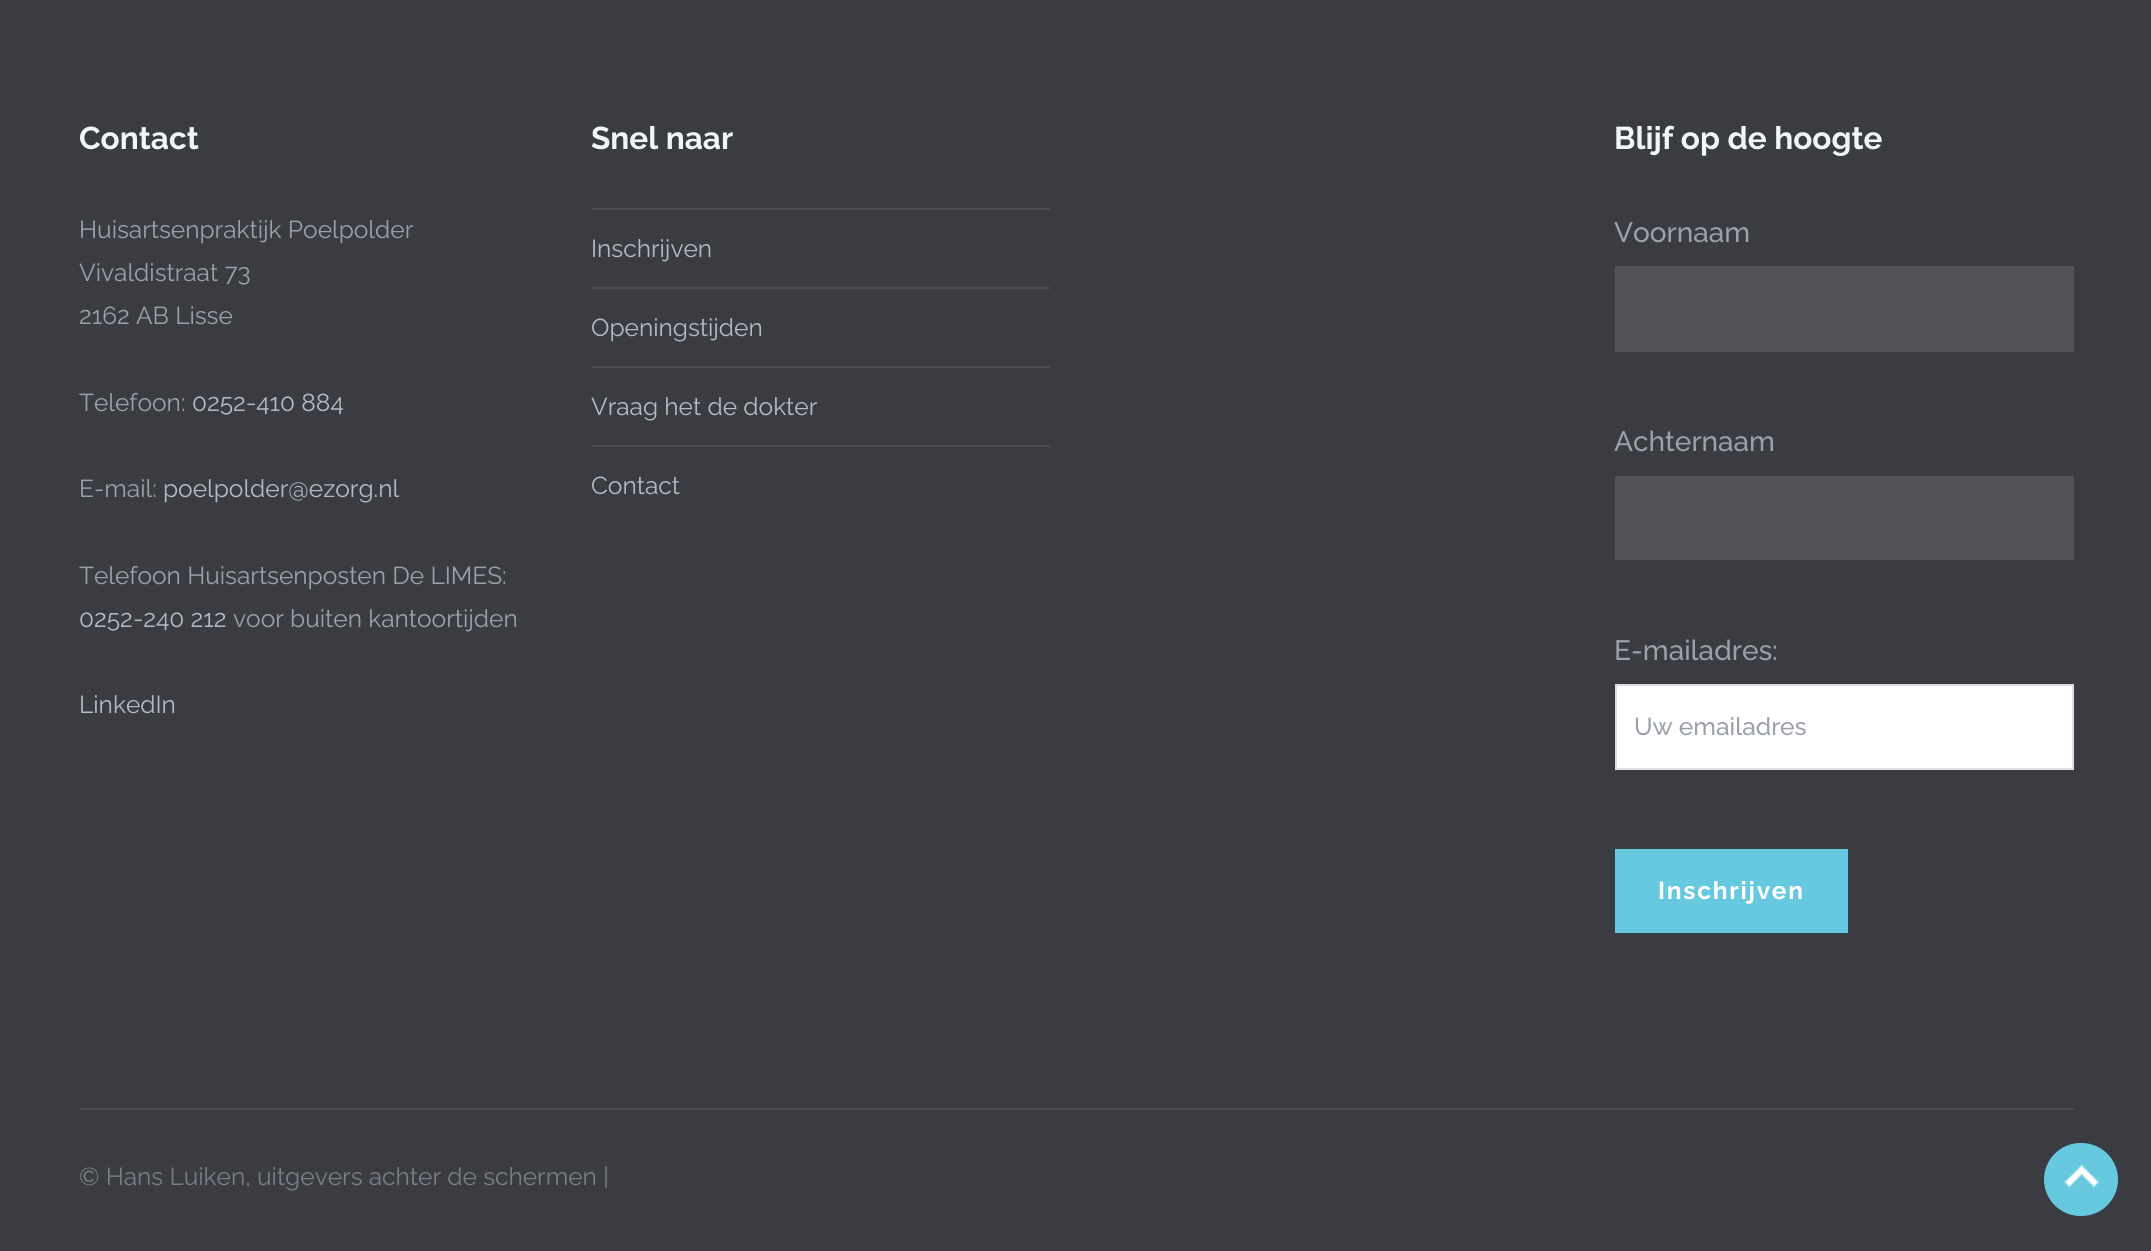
#include <cairo.h>
#include <math.h>
#include <stddef.h>


static void set_color(cairo_t *cr, unsigned color) {
    cairo_set_source_rgb(cr, (color >> 16) / 255.0, (color >> 8 & 255) / 255.0, (color & 255) / 255.0);
}

static void draw_text(cairo_t *cr, double x, double y, const char *s, const char *family, double size, int italic, int bold, unsigned color) {
    cairo_select_font_face(cr, family, italic ? CAIRO_FONT_SLANT_ITALIC : CAIRO_FONT_SLANT_NORMAL,
        bold ? CAIRO_FONT_WEIGHT_BOLD : CAIRO_FONT_WEIGHT_NORMAL);
    cairo_set_font_size(cr, size);
    set_color(cr, color);
    cairo_move_to(cr, x, y);
    cairo_show_text(cr, s);
}

static void draw_spaced(cairo_t *cr, double x, double y, const char *s, double letter, double word) {
    cairo_move_to(cr, x, y);
    while (*s) {
        char ch[5] = {0};
        int n = 0;
        do ch[n++] = *s++; while ((*s & 0xC0) == 0x80);
        cairo_show_text(cr, ch);
        cairo_rel_move_to(cr, letter + word * (*ch == ' '), 0);
    }
}

static void fill_rect(cairo_t *cr, double x, double y, double w, double h, unsigned color) {
    set_color(cr, color);
    cairo_rectangle(cr, x, y, w, h);
    cairo_fill(cr);
}

static void rounded_rect(cairo_t *cr, double x, double y, double w, double h, double r) {
    cairo_new_sub_path(cr);
    cairo_arc(cr, x + w - r, y + h - r, r, 0, M_PI / 2);
    cairo_arc(cr, x + r, y + h - r, r, M_PI / 2, M_PI);
    cairo_arc(cr, x + r, y + r, r, M_PI, 1.5 * M_PI);
    cairo_arc(cr, x + w - r, y + r, r, 1.5 * M_PI, 2 * M_PI);
    cairo_close_path(cr);
}

static void draw_image(cairo_t *cr, const char *path, double x, double y, double w, double h) {
    cairo_surface_t *image = cairo_image_surface_create_from_png(path);
    cairo_save(cr);
    cairo_set_source_surface(cr, image, x, y);
    cairo_rectangle(cr, x, y, w, h);
    cairo_fill(cr);
    cairo_restore(cr);
    cairo_surface_destroy(image);
}

int main(void) {
    cairo_surface_t *surface = cairo_image_surface_create(CAIRO_FORMAT_RGB24, 2151, 1251);
    cairo_t *cr = cairo_create(surface);
    cairo_font_options_t *options = cairo_font_options_create();
    cairo_font_options_set_hint_metrics(options, CAIRO_HINT_METRICS_OFF);
    cairo_font_options_set_hint_style(options, CAIRO_HINT_STYLE_NONE);
    cairo_set_font_options(cr, options);
    cairo_set_miter_limit(cr, 4);
    set_color(cr, 0x3A3C41);
    cairo_paint(cr);
    draw_text(cr, 79, 149, "Contact", "Raleway", 31.5, 0, 1, 0xF0F5F7);
    draw_text(cr, 79, 238, "Huisartsenpraktijk Poelpolder", "Raleway", 24.5, 0, 0, 0x9BA0AA);
    draw_text(cr, 79, 281, "Vivaldistraat 73", "Raleway", 24.5, 0, 0, 0x9BA0AA);
    draw_text(cr, 79, 324, "2162 AB Lisse", "Raleway", 24.5, 0, 0, 0x9BA0AA);
    draw_text(cr, 79, 411, "Telefoon:", "Raleway", 24.5, 0, 0, 0x9BA0AA);
    draw_text(cr, 192, 411, "0252-410 884", "Raleway", 24.5, 0, 0, 0xB5BAC6);
    draw_text(cr, 79, 497, "E-mail:", "Raleway", 24.5, 0, 0, 0x9BA0AA);
    draw_text(cr, 163, 497, "poelpolder@ezorg.nl", "Raleway", 24.5, 0, 0, 0xB5BAC6);
    draw_text(cr, 79, 584, "Telefoon Huisartsenposten De LIMES:", "Raleway", 24.5, 0, 0, 0x9BA0AA);
    draw_text(cr, 79, 627, "0252-240 212", "Raleway", 24.5, 0, 0, 0xB5BAC6);
    draw_text(cr, 233, 627, "voor buiten kantoortijden", "Raleway", 24.5, 0, 0, 0x9BA0AA);
    draw_text(cr, 79, 713, "LinkedIn", "Raleway", 24.5, 0, 0, 0xB5BAC6);
    draw_text(cr, 591, 149, "Snel naar", "Raleway", 31.5, 0, 1, 0xF0F5F7);
    fill_rect(cr, 592, 208, 458, 2, 0x4A4C52);
    fill_rect(cr, 592, 287, 458, 2, 0x4A4C52);
    draw_text(cr, 591, 257, "Inschrijven", "Raleway", 24.5, 0, 0, 0xB5BAC6);
    fill_rect(cr, 592, 366, 458, 2, 0x4A4C52);
    draw_text(cr, 591, 336, "Openingstijden", "Raleway", 24.5, 0, 0, 0xB5BAC6);
    fill_rect(cr, 592, 445, 458, 2, 0x4A4C52);
    draw_text(cr, 591, 415, "Vraag het de dokter", "Raleway", 24.5, 0, 0, 0xB5BAC6);
    draw_text(cr, 591, 494, "Contact", "Raleway", 24.5, 0, 0, 0xB5BAC6);
    draw_text(cr, 1614, 149, "Blijf op de hoogte", "Raleway", 31.5, 0, 1, 0xF0F5F7);
    draw_text(cr, 1614, 242, "Voornaam", "Raleway Medium", 28, 0, 0, 0x9BA0AA);
    fill_rect(cr, 1615, 266, 459, 86, 0x515359);
    draw_text(cr, 1614, 451, "Achternaam", "Raleway Medium", 28, 0, 0, 0x9BA0AA);
    fill_rect(cr, 1615, 476, 459, 84, 0x515359);
    draw_text(cr, 1614, 660, "E-mailadres:", "Raleway Medium", 28, 0, 0, 0x9BA0AA);
    set_color(cr, 0xFFFFFF);
    cairo_rectangle(cr, 1616, 685, 457, 84);
    cairo_fill_preserve(cr);
    set_color(cr, 0xDCDEE4);
    cairo_stroke(cr);
    draw_text(cr, 1634, 735, "Uw emailadres", "Raleway Medium", 24.5, 0, 0, 0x9BA0AA);
    fill_rect(cr, 1615, 849, 233, 84, 0x67C9E0);
    cairo_select_font_face(cr, "Raleway", CAIRO_FONT_SLANT_NORMAL, CAIRO_FONT_WEIGHT_BOLD);
    set_color(cr, 0xFFFFFF);
    draw_spaced(cr, 1658, 899, "Inschrijven", 1.75, 0);
    fill_rect(cr, 79, 1108, 1995, 2, 0x4A4C52);
    draw_text(cr, 79, 1185, "© Hans Luiken, uitgevers achter de schermen |", "Raleway", 24.5, 0, 0, 0x7A7D86);
    set_color(cr, 0x67C9E0);
    rounded_rect(cr, 2044, 1143, 74, 73, 36.5);
    cairo_fill(cr);
    draw_image(cr, "assets/img1.png", 2064, 1164, 35, 24);
    cairo_surface_write_to_png(surface, "output.png");
    cairo_font_options_destroy(options);
    cairo_destroy(cr);
    cairo_surface_destroy(surface);
    return 0;
}
